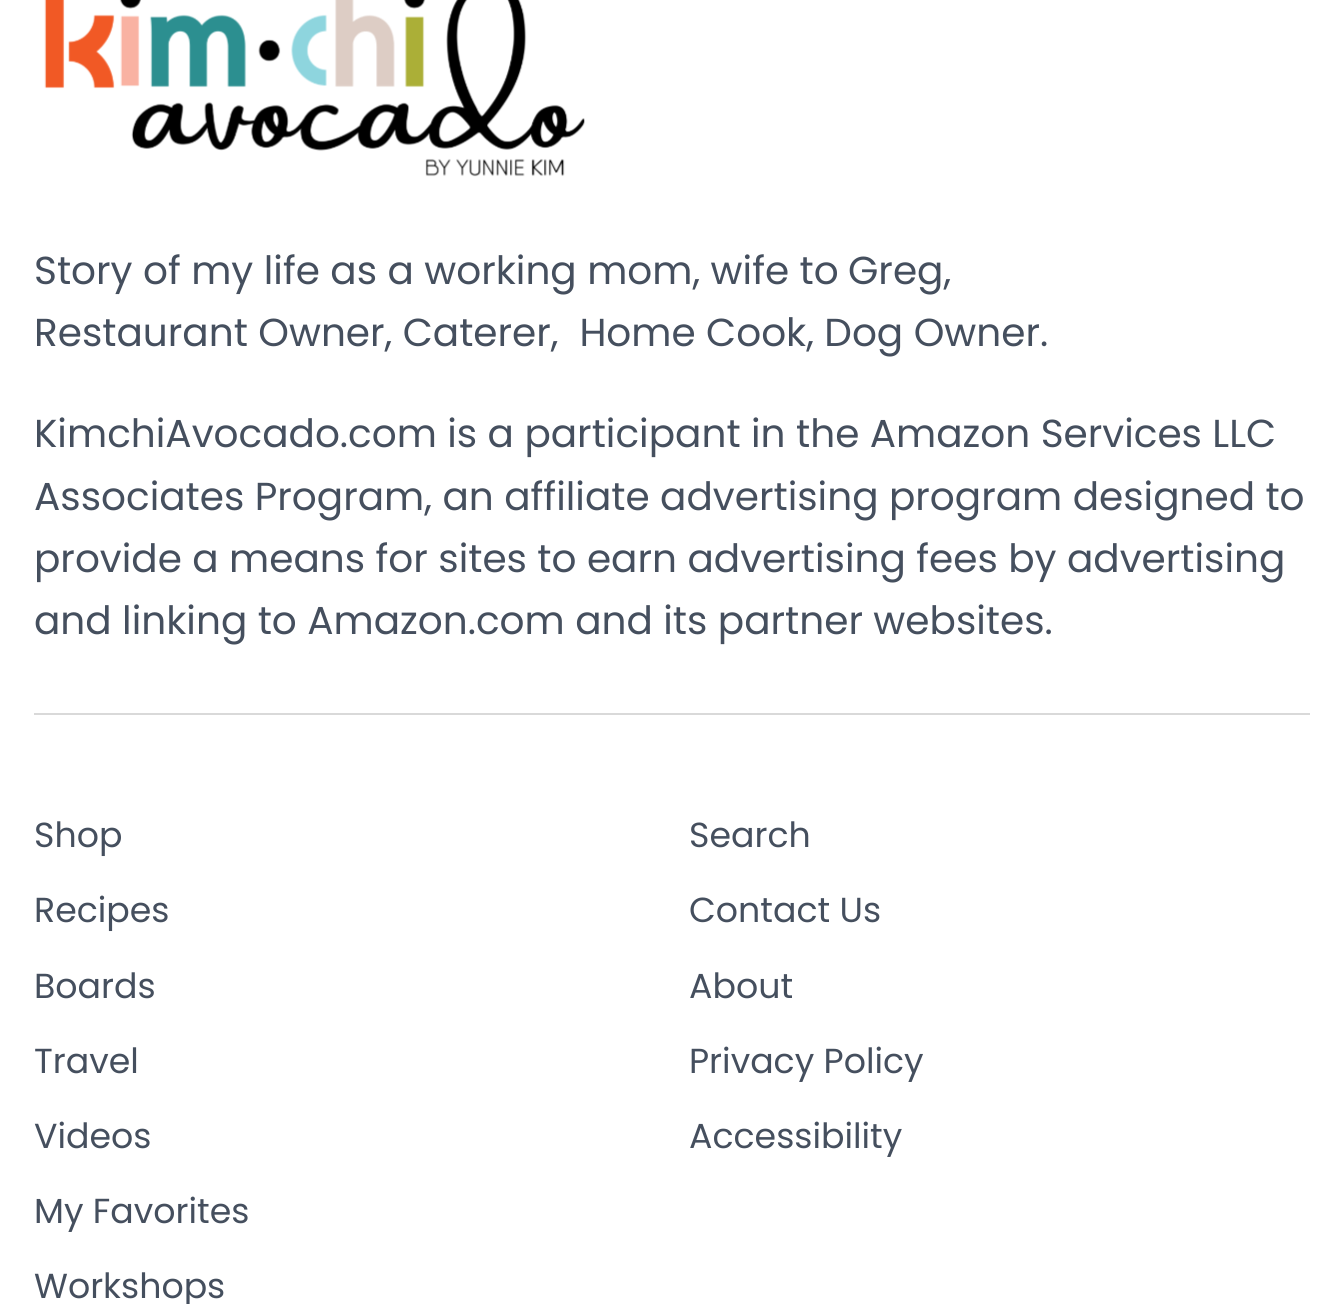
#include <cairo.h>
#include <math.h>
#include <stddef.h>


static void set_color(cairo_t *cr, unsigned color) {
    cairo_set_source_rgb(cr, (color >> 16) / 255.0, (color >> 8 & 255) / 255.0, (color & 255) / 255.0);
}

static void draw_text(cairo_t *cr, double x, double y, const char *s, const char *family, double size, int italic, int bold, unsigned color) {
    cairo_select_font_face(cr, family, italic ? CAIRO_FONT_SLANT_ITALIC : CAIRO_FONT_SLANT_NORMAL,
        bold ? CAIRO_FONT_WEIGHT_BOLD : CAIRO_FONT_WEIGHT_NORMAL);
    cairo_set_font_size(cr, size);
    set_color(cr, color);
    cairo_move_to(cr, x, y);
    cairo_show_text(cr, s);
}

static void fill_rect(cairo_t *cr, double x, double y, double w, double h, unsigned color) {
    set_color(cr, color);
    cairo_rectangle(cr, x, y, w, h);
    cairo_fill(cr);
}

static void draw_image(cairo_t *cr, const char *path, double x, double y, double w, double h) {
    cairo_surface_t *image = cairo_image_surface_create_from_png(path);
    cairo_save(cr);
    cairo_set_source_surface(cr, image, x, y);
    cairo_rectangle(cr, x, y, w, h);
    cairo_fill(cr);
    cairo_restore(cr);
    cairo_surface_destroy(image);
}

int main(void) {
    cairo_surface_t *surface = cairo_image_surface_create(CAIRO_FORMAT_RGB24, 1343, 1304);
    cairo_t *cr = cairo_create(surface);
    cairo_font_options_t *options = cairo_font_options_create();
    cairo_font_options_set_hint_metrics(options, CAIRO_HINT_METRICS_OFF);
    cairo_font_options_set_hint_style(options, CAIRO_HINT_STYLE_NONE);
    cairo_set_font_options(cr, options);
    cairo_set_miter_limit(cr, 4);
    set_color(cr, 0xFFFFFF);
    cairo_paint(cr);
    draw_image(cr, "assets/img1.png", 44, 0, 541, 177);
    draw_text(cr, 34, 284, "Story of my life as a working mom, wife to", "Poppins", 39, 0, 0, 0x454F5E);
    draw_text(cr, 848, 284, "Greg,", "Poppins", 39, 0, 0, 0x454F5E);
    draw_text(cr, 34, 346, "Restaurant Owner, Caterer,  Home Cook, Dog Owner.", "Poppins", 39, 0, 0, 0x454F5E);
    draw_text(cr, 34, 447, "KimchiAvocado.com is a participant in the Amazon Services LLC", "Poppins", 39, 0, 0, 0x454F5E);
    draw_text(cr, 34, 510, "Associates Program, an affiliate advertising program designed to", "Poppins", 39, 0, 0, 0x454F5E);
    draw_text(cr, 34, 572, "provide a means for sites to earn advertising fees by advertising", "Poppins", 39, 0, 0, 0x454F5E);
    draw_text(cr, 34, 634, "and linking to Amazon.com and its partner websites.", "Poppins", 39, 0, 0, 0x454F5E);
    fill_rect(cr, 34, 713, 1276, 2, 0xD9D9D9);
    draw_text(cr, 34, 847, "Shop", "Poppins", 34.75, 0, 0, 0x454F5E);
    draw_text(cr, 34, 922, "Recipes", "Poppins", 34.75, 0, 0, 0x454F5E);
    draw_text(cr, 34, 998, "Boards", "Poppins", 34.75, 0, 0, 0x454F5E);
    draw_text(cr, 34, 1073, "Travel", "Poppins", 34.75, 0, 0, 0x454F5E);
    draw_text(cr, 34, 1148, "Videos", "Poppins", 34.75, 0, 0, 0x454F5E);
    draw_text(cr, 34, 1223, "My Favorites", "Poppins", 34.75, 0, 0, 0x454F5E);
    draw_text(cr, 34, 1298, "Workshops", "Poppins", 34.75, 0, 0, 0x454F5E);
    draw_text(cr, 689, 847, "Search", "Poppins", 34.75, 0, 0, 0x454F5E);
    draw_text(cr, 689, 922, "Contact Us", "Poppins", 34.75, 0, 0, 0x454F5E);
    draw_text(cr, 689, 998, "About", "Poppins", 34.75, 0, 0, 0x454F5E);
    draw_text(cr, 689, 1073, "Privacy Policy", "Poppins", 34.75, 0, 0, 0x454F5E);
    draw_text(cr, 689, 1148, "Accessibility", "Poppins", 34.75, 0, 0, 0x454F5E);
    cairo_surface_write_to_png(surface, "output.png");
    cairo_font_options_destroy(options);
    cairo_destroy(cr);
    cairo_surface_destroy(surface);
    return 0;
}
